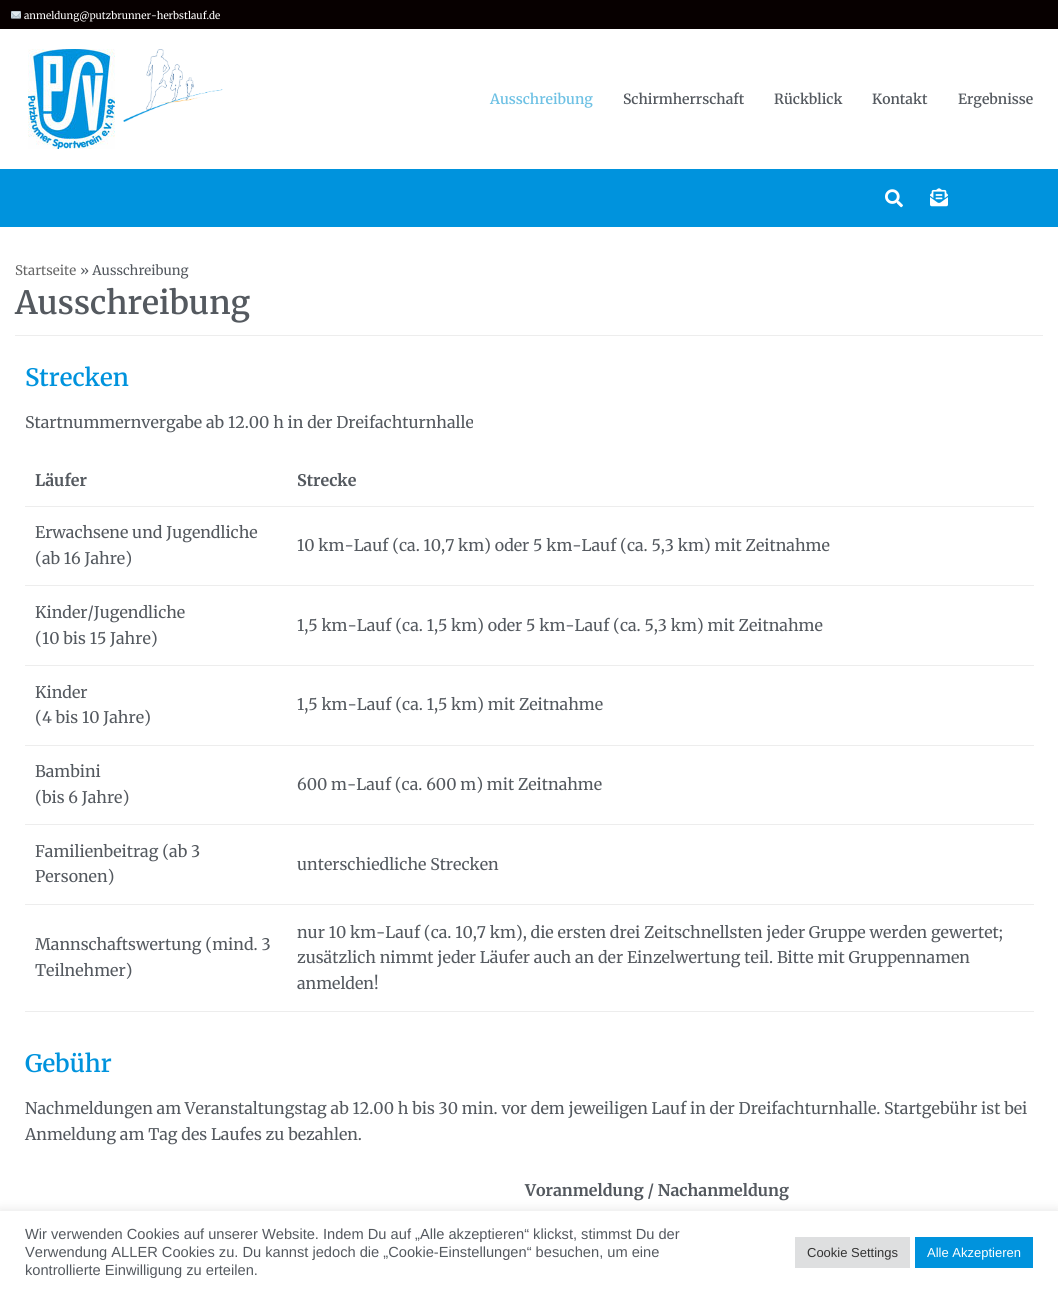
#include <cairo.h>
#include <math.h>
#include <stddef.h>


static void set_color(cairo_t *cr, unsigned color) {
    cairo_set_source_rgb(cr, (color >> 16) / 255.0, (color >> 8 & 255) / 255.0, (color & 255) / 255.0);
}

static void draw_text(cairo_t *cr, double x, double y, const char *s, const char *family, double size, int italic, int bold, unsigned color) {
    cairo_select_font_face(cr, family, italic ? CAIRO_FONT_SLANT_ITALIC : CAIRO_FONT_SLANT_NORMAL,
        bold ? CAIRO_FONT_WEIGHT_BOLD : CAIRO_FONT_WEIGHT_NORMAL);
    cairo_set_font_size(cr, size);
    set_color(cr, color);
    cairo_move_to(cr, x, y);
    cairo_show_text(cr, s);
}

static void fill_rect(cairo_t *cr, double x, double y, double w, double h, unsigned color) {
    set_color(cr, color);
    cairo_rectangle(cr, x, y, w, h);
    cairo_fill(cr);
}

static void rounded_rect(cairo_t *cr, double x, double y, double w, double h, double r) {
    cairo_new_sub_path(cr);
    cairo_arc(cr, x + w - r, y + h - r, r, 0, M_PI / 2);
    cairo_arc(cr, x + r, y + h - r, r, M_PI / 2, M_PI);
    cairo_arc(cr, x + r, y + r, r, M_PI, 1.5 * M_PI);
    cairo_arc(cr, x + w - r, y + r, r, 1.5 * M_PI, 2 * M_PI);
    cairo_close_path(cr);
}

static void draw_shadow(cairo_t *cr, double x, double y, double w, double h, double r, double blur, double alpha) {
    cairo_push_group_with_content(cr, CAIRO_CONTENT_ALPHA);
    cairo_set_operator(cr, CAIRO_OPERATOR_SOURCE);
    for (int i = 15; i >= -15 && fmin(w, h) + blur * i / 3 > 0; i -= 2) {
        double e = blur * i / 6;
        cairo_set_source_rgba(cr, 0, 0, 0, alpha * erfc((i - 1) / 8.5) / 2);
        rounded_rect(cr, x - e, y - e, w + 2 * e, h + 2 * e, fmax(0, fmin(r + e + blur * .6, fmin(w, h) / 2 + e)));
        cairo_fill(cr);
    }
    cairo_pattern_t *soft = cairo_pop_group(cr);
    cairo_mask(cr, soft);
    cairo_pattern_destroy(soft);
}

static void draw_image(cairo_t *cr, const char *path, double x, double y, double w, double h) {
    cairo_surface_t *image = cairo_image_surface_create_from_png(path);
    cairo_save(cr);
    cairo_set_source_surface(cr, image, x, y);
    cairo_rectangle(cr, x, y, w, h);
    cairo_fill(cr);
    cairo_restore(cr);
    cairo_surface_destroy(image);
}

int main(void) {
    cairo_surface_t *surface = cairo_image_surface_create(CAIRO_FORMAT_RGB24, 1058, 1293);
    cairo_t *cr = cairo_create(surface);
    cairo_font_options_t *options = cairo_font_options_create();
    cairo_font_options_set_hint_metrics(options, CAIRO_HINT_METRICS_OFF);
    cairo_font_options_set_hint_style(options, CAIRO_HINT_STYLE_NONE);
    cairo_set_font_options(cr, options);
    cairo_set_miter_limit(cr, 4);
    set_color(cr, 0xFFFFFF);
    cairo_paint(cr);
    fill_rect(cr, 0, 0, 1058, 29, 0x070000);
    draw_image(cr, "assets/img1.png", 11, 11, 10, 8);
    draw_text(cr, 24, 19, "anmeldung@putzbrunner-herbstlauf.de", "Merriweather", 10, 0, 0, 0xFFFFFF);
    draw_image(cr, "assets/img2.png", 28, 49, 87, 100);
    draw_image(cr, "assets/img3.png", 123, 49, 100, 73);
    draw_text(cr, 490, 104, "Ausschreibung", "Merriweather SemiBold", 14, 0, 0, 0x6EC1E4);
    draw_text(cr, 623, 104, "Schirmherrschaft", "Merriweather SemiBold", 14, 0, 0, 0x54595F);
    draw_text(cr, 774, 104, "Rückblick", "Merriweather SemiBold", 14, 0, 0, 0x54595F);
    draw_text(cr, 872, 104, "Kontakt", "Merriweather SemiBold", 14, 0, 0, 0x54595F);
    draw_text(cr, 958, 104, "Ergebnisse", "Merriweather SemiBold", 14, 0, 0, 0x54595F);
    fill_rect(cr, 0, 169, 1058, 58, 0x0093DD);
    draw_image(cr, "assets/img4.png", 885, 189, 18, 19);
    draw_image(cr, "assets/img5.png", 930, 188, 18, 19);
    fill_rect(cr, 15, 335, 1028, 1, 0xEDEDED);
    draw_text(cr, 15, 275, "Startseite", "Merriweather", 13.25, 0, 0, 0x676767);
    draw_text(cr, 80, 275, "» Ausschreibung", "Merriweather", 13.25, 0, 0, 0x54595F);
    draw_text(cr, 15, 314, "Ausschreibung", "Merriweather SemiBold", 32, 0, 0, 0x54595F);
    draw_text(cr, 25, 386, "Strecken", "Merriweather SemiBold", 24, 0, 0, 0x0093DD);
    draw_text(cr, 25, 428, "Startnummernvergabe ab 12.00 h in der Dreifachturnhalle", "Merriweather", 16, 0, 0, 0x54595F);
    draw_text(cr, 35, 486, "Läufer", "Merriweather", 16, 0, 1, 0x54595F);
    fill_rect(cr, 25, 506, 1009, 1, 0xEDEDED);
    draw_text(cr, 297, 486, "Strecke", "Merriweather", 16, 0, 1, 0x54595F);
    draw_text(cr, 35, 538, "Erwachsene und Jugendliche", "Merriweather", 16, 0, 0, 0x54595F);
    draw_text(cr, 35, 564, "(ab 16 Jahre)", "Merriweather", 16, 0, 0, 0x54595F);
    fill_rect(cr, 25, 585, 1009, 1, 0xEDEDED);
    draw_text(cr, 297, 551, "10 km-Lauf (ca. 10,7 km) oder 5 km-Lauf (ca. 5,3 km) mit Zeitnahme", "Merriweather", 16, 0, 0, 0x54595F);
    draw_text(cr, 35, 618, "Kinder/Jugendliche", "Merriweather", 16, 0, 0, 0x54595F);
    draw_text(cr, 35, 644, "(10 bis 15 Jahre)", "Merriweather", 16, 0, 0, 0x54595F);
    fill_rect(cr, 25, 665, 1009, 1, 0xEDEDED);
    draw_text(cr, 297, 631, "1,5 km-Lauf (ca. 1,5 km) oder 5 km-Lauf (ca. 5,3 km) mit Zeitnahme", "Merriweather", 16, 0, 0, 0x54595F);
    draw_text(cr, 35, 698, "Kinder", "Merriweather", 16, 0, 0, 0x54595F);
    draw_text(cr, 35, 723, "(4 bis 10 Jahre)", "Merriweather", 16, 0, 0, 0x54595F);
    fill_rect(cr, 25, 745, 1009, 1, 0xEDEDED);
    draw_text(cr, 297, 710, "1,5 km-Lauf (ca. 1,5 km) mit Zeitnahme", "Merriweather", 16, 0, 0, 0x54595F);
    draw_text(cr, 35, 777, "Bambini", "Merriweather", 16, 0, 0, 0x54595F);
    draw_text(cr, 35, 803, "(bis 6 Jahre)", "Merriweather", 16, 0, 0, 0x54595F);
    fill_rect(cr, 25, 824, 1009, 1, 0xEDEDED);
    draw_text(cr, 297, 790, "600 m-Lauf (ca. 600 m) mit Zeitnahme", "Merriweather", 16, 0, 0, 0x54595F);
    draw_text(cr, 35, 857, "Familienbeitrag (ab 3", "Merriweather", 16, 0, 0, 0x54595F);
    draw_text(cr, 35, 882, "Personen)", "Merriweather", 16, 0, 0, 0x54595F);
    fill_rect(cr, 25, 904, 1009, 1, 0xEDEDED);
    draw_text(cr, 297, 870, "unterschiedliche Strecken", "Merriweather", 16, 0, 0, 0x54595F);
    draw_text(cr, 35, 950, "Mannschaftswertung (mind. 3", "Merriweather", 16, 0, 0, 0x54595F);
    draw_text(cr, 35, 976, "Teilnehmer)", "Merriweather", 16, 0, 0, 0x54595F);
    fill_rect(cr, 25, 1011, 1009, 1, 0xEDEDED);
    draw_text(cr, 297, 938, "nur 10 km-Lauf (ca. 10,7 km), die ersten drei Zeitschnellsten jeder Gruppe werden gewertet;", "Merriweather", 16, 0, 0, 0x54595F);
    draw_text(cr, 297, 963, "zusätzlich nimmt jeder Läufer auch an der Einzelwertung teil. Bitte mit Gruppennamen", "Merriweather", 16, 0, 0, 0x54595F);
    draw_text(cr, 297, 989, "anmelden!", "Merriweather", 16, 0, 0, 0x54595F);
    draw_text(cr, 25, 1072, "Gebühr", "Merriweather SemiBold", 24, 0, 0, 0x0093DD);
    draw_text(cr, 25, 1114, "Nachmeldungen am Veranstaltungstag ab 12.00 h bis 30 min. vor dem jeweiligen Lauf in der Dreifachturnhalle. Startgebühr ist bei", "Merriweather", 16, 0, 0, 0x54595F);
    draw_text(cr, 25, 1140, "Anmeldung am Tag des Laufes zu bezahlen.", "Merriweather", 16, 0, 0, 0x54595F);
    draw_text(cr, 525, 1196, "Voranmeldung / Nachanmeldung", "Merriweather", 16, 0, 1, 0x54595F);
    set_color(cr, 0xACABAB);
    draw_shadow(cr, 0, 1210, 1058, 82, 0, 5, 0.3);
    fill_rect(cr, 0, 1211, 1058, 82, 0xFFFFFF);
    draw_text(cr, 25, 1239, "Wir verwenden Cookies auf unserer Website. Indem Du auf „Alle akzeptieren“ klickst, stimmst Du der", "Liberation Sans", 14.65, 0, 0, 0x54595F);
    draw_text(cr, 25, 1257, "Verwendung ALLER Cookies zu. Du kannst jedoch die „Cookie-Einstellungen“ besuchen, um eine", "Liberation Sans", 14.65, 0, 0, 0x54595F);
    draw_text(cr, 25, 1275, "kontrollierte Einwilligung zu erteilen.", "Liberation Sans", 14.65, 0, 0, 0x54595F);
    fill_rect(cr, 795, 1237, 115, 31, 0xDEDFE0);
    draw_text(cr, 807, 1257, "Cookie Settings", "Liberation Sans", 13, 0, 0, 0x333333);
    fill_rect(cr, 915, 1237, 118, 31, 0x0093DD);
    draw_text(cr, 927, 1257, "Alle Akzeptieren", "Liberation Sans", 13, 0, 0, 0xFFFFFF);
    cairo_surface_write_to_png(surface, "output.png");
    cairo_font_options_destroy(options);
    cairo_destroy(cr);
    cairo_surface_destroy(surface);
    return 0;
}
